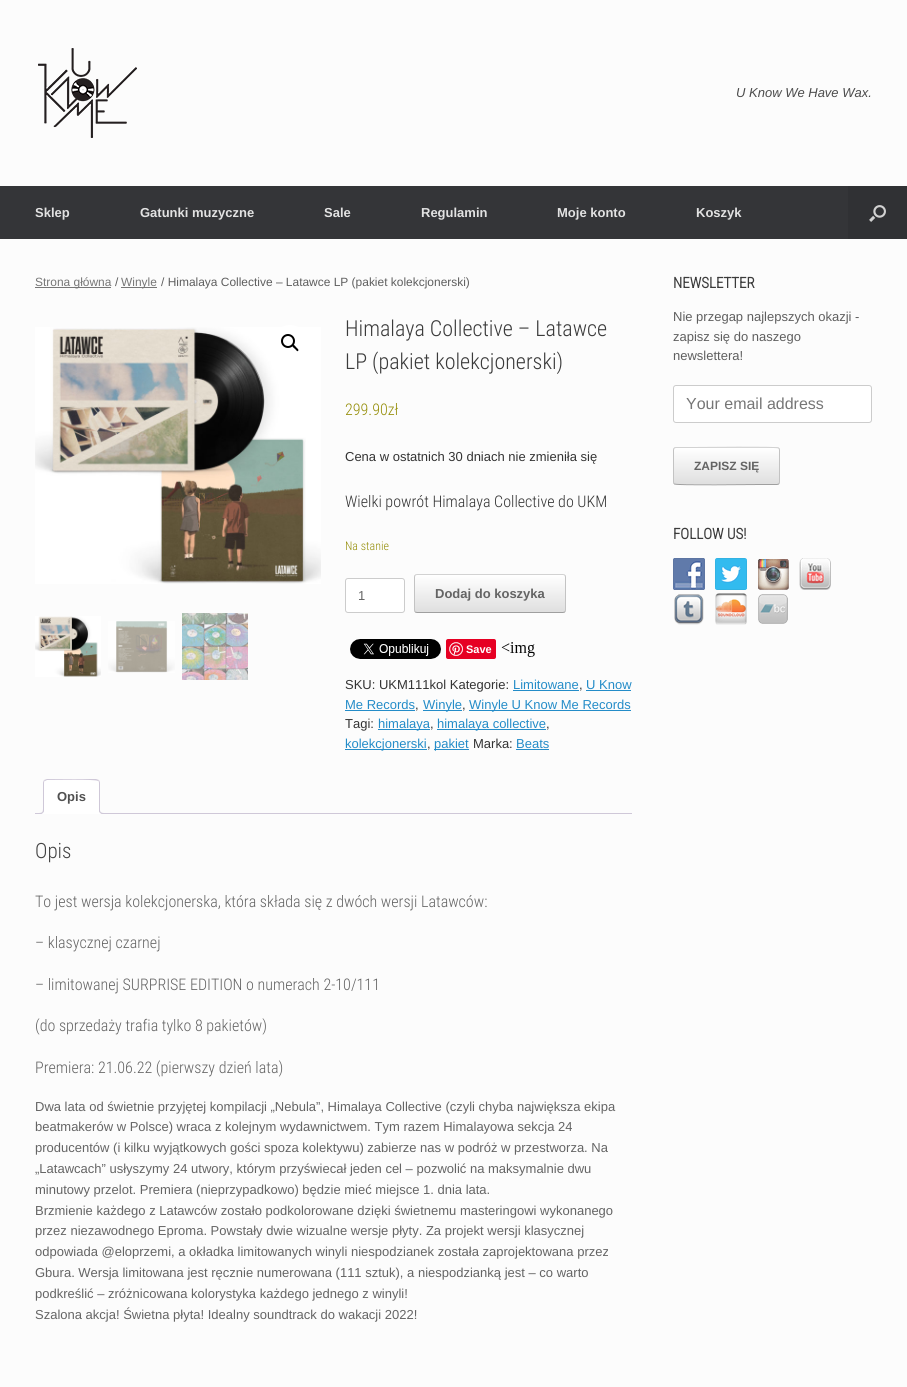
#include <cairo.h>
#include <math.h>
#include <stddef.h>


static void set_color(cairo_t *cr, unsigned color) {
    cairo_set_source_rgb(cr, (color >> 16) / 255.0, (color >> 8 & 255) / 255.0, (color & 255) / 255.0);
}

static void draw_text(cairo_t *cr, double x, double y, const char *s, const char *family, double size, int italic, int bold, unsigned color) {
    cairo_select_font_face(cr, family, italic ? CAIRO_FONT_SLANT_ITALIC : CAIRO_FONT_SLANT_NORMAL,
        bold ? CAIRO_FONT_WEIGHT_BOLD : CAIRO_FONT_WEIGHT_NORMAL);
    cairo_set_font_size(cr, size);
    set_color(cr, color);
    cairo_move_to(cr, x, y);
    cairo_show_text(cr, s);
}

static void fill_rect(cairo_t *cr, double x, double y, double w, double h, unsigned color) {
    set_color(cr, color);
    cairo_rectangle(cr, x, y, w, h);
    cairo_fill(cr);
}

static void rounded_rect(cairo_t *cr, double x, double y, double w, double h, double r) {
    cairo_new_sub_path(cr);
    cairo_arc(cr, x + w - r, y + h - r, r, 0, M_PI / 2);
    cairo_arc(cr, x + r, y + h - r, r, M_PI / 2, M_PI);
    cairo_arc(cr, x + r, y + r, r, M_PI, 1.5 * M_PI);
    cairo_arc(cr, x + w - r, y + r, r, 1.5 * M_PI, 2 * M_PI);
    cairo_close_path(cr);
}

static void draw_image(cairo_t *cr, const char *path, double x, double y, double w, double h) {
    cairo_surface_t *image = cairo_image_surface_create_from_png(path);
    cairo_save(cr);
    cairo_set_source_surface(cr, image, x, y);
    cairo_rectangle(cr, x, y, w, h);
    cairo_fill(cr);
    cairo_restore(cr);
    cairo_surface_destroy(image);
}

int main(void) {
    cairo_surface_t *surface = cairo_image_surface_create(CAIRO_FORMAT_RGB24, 907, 1387);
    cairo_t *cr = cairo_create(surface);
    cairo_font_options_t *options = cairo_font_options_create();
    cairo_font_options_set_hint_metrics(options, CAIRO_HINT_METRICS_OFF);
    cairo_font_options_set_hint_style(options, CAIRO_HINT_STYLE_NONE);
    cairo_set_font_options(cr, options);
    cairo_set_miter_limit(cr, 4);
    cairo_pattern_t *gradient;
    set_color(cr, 0xFCFCFC);
    cairo_paint(cr);
    draw_image(cr, "assets/img1.png", 38, 48, 99, 90);
    draw_text(cr, 736, 97, "U Know We Have Wax.", "Liberation Sans", 13, 1, 0, 0x4B4B4B);
    fill_rect(cr, 0, 186, 848, 53, 0x343538);
    draw_text(cr, 35, 217, "Sklep", "Liberation Sans", 13, 0, 1, 0xE2E2E2);
    draw_text(cr, 140, 217, "Gatunki muzyczne", "Liberation Sans", 13, 0, 1, 0xE2E2E2);
    draw_text(cr, 324, 217, "Sale", "Liberation Sans", 13, 0, 1, 0xE2E2E2);
    draw_text(cr, 421, 217, "Regulamin", "Liberation Sans", 13, 0, 1, 0xE2E2E2);
    draw_text(cr, 557, 217, "Moje konto", "Liberation Sans", 13, 0, 1, 0xE2E2E2);
    draw_text(cr, 696, 217, "Koszyk", "Liberation Sans", 13, 0, 1, 0xE2E2E2);
    fill_rect(cr, 848, 186, 59, 53, 0x303134);
    draw_image(cr, "assets/img2.png", 869, 205, 17, 17);
    fill_rect(cr, 35, 287, 76, 1, 0x767676);
    draw_text(cr, 35, 286, "Strona główna", "Liberation Sans", 11.95, 0, 0, 0x767676);
    draw_text(cr, 115, 286, "/", "Liberation Sans", 11.95, 0, 0, 0x5E5E5E);
    fill_rect(cr, 121, 287, 36, 1, 0x767676);
    draw_text(cr, 121, 286, "Winyle", "Liberation Sans", 11.95, 0, 0, 0x767676);
    draw_text(cr, 161, 286, "/ Himalaya Collective – Latawce LP (pakiet kolekcjonerski)", "Liberation Sans", 11.95, 0, 0, 0x5E5E5E);
    draw_image(cr, "assets/img3.png", 35, 327, 286, 257);
    set_color(cr, 0xFFFFFF);
    cairo_arc(cr, 290, 343, 18, 0, 2 * M_PI);
    cairo_fill(cr);
    cairo_arc(cr, 288, 341, 6, 0, 2 * M_PI);
    set_color(cr, 0x000000);
    cairo_stroke(cr);
    cairo_new_path(cr);
    cairo_move_to(cr, 292.5, 345);
    cairo_curve_to(cr, 294, 344, 295.5, 346.5, 296, 347);
    cairo_curve_to(cr, 296.5, 348, 299.5, 349.5, 298, 351);
    cairo_curve_to(cr, 297, 352, 295.5, 349, 294.5, 348.5);
    cairo_curve_to(cr, 294, 348, 291.5, 346.5, 292.5, 345);
    cairo_close_path(cr);
    cairo_fill(cr);
    draw_image(cr, "assets/img4.png", 35, 616, 66, 61);
    draw_image(cr, "assets/img5.png", 108, 621, 67, 52);
    draw_image(cr, "assets/img6.png", 182, 613, 66, 67);
    draw_text(cr, 345, 336, "Himalaya Collective – Latawce", "Roboto Condensed Light", 22, 0, 0, 0x3B3B3B);
    draw_text(cr, 345, 369, "LP (pakiet kolekcjonerski)", "Roboto Condensed Light", 22, 0, 0, 0x3B3B3B);
    draw_text(cr, 345, 415, "299.90zł", "Roboto Condensed Light", 16, 0, 0, 0x958E09);
    draw_text(cr, 345, 461, "Cena w ostatnich 30 dniach nie zmieniła się", "Liberation Sans", 13, 0, 0, 0x333333);
    draw_text(cr, 345, 507, "Wielki powrót Himalaya Collective do UKM", "Roboto Condensed Light", 16, 0, 0, 0x333333);
    draw_text(cr, 345, 550, "Na stanie", "Roboto Condensed Light", 11.95, 0, 0, 0x958E09);
    set_color(cr, 0xFFFFFF);
    rounded_rect(cr, 345.5, 578.5, 59, 34, 2.5);
    cairo_fill_preserve(cr);
    set_color(cr, 0xCCCCCC);
    cairo_set_line_width(cr, 1);
    cairo_stroke(cr);
    draw_text(cr, 358, 600, "1", "Liberation Sans", 13, 0, 0, 0x646464);
    cairo_save(cr);
    rounded_rect(cr, 414, 574, 152, 39, 3);
    cairo_clip(cr);
    gradient = cairo_pattern_create_linear(415, 612, 415, 575);
    cairo_pattern_add_color_stop_rgba(gradient, 0, 0.875, 0.875, 0.875, 1);
    cairo_pattern_add_color_stop_rgba(gradient, 1, 1, 1, 1, 1);
    cairo_set_source(cr, gradient);
    cairo_pattern_destroy(gradient);
    cairo_rectangle(cr, 414, 575, 152, 37);
    cairo_fill(cr);
    cairo_restore(cr);
    cairo_new_path(cr);
    cairo_move_to(cr, 415, 575);
    cairo_line_to(cr, 417, 574.5);
    cairo_line_to(cr, 563, 574.5);
    cairo_line_to(cr, 565, 575);
    set_color(cr, 0xD2D2D2);
    cairo_stroke(cr);
    cairo_new_path(cr);
    cairo_move_to(cr, 565, 575);
    cairo_curve_to(cr, 565, 575.5, 565.5, 576.5, 565.5, 577);
    cairo_line_to(cr, 565.5, 610);
    cairo_curve_to(cr, 565.5, 610.5, 565, 611.5, 565, 612);
    set_color(cr, 0xC3C3C3);
    cairo_stroke(cr);
    cairo_new_path(cr);
    cairo_move_to(cr, 565, 612);
    cairo_line_to(cr, 563, 612.5);
    cairo_line_to(cr, 417, 612.5);
    cairo_line_to(cr, 415, 612);
    set_color(cr, 0x9F9F9F);
    cairo_stroke(cr);
    cairo_new_path(cr);
    cairo_move_to(cr, 415, 612);
    cairo_curve_to(cr, 415, 611.5, 414.5, 610.5, 414.5, 610);
    cairo_line_to(cr, 414.5, 577);
    cairo_curve_to(cr, 414.5, 576.5, 415, 575.5, 415, 575);
    set_color(cr, 0xC3C3C3);
    cairo_stroke(cr);
    draw_text(cr, 435, 598, "Dodaj do koszyka", "Liberation Sans", 13, 0, 1, 0x646464);
    draw_image(cr, "assets/img7.png", 350, 639, 91, 20);
    set_color(cr, 0xE60023);
    rounded_rect(cr, 446, 639, 50, 20, 2);
    cairo_fill(cr);
    draw_image(cr, "assets/img8.png", 449, 642, 14, 14);
    draw_text(cr, 466, 653, "Save", "Liberation Sans", 11, 0, 1, 0xFFFFFF);
    draw_image(cr, "assets/img9.png", 501, 642, 34, 15);
    draw_text(cr, 345, 689, "SKU: UKM111kol Kategorie:", "Liberation Sans", 13, 0, 0, 0x333333);
    draw_text(cr, 513, 689, "Limitowane", "Liberation Sans", 13, 0, 0, 0x248CC8);
    draw_text(cr, 579, 689, ",", "Liberation Sans", 13, 0, 0, 0x333333);
    fill_rect(cr, 513, 690, 66, 1, 0x248CC8);
    fill_rect(cr, 586, 690, 45, 1, 0x248CC8);
    draw_text(cr, 586, 689, "U Know", "Liberation Sans", 13, 0, 0, 0x248CC8);
    draw_text(cr, 345, 709, "Me Records", "Liberation Sans", 13, 0, 0, 0x248CC8);
    draw_text(cr, 415, 709, ",", "Liberation Sans", 13, 0, 0, 0x333333);
    fill_rect(cr, 345, 710, 70, 1, 0x248CC8);
    fill_rect(cr, 423, 710, 39, 1, 0x248CC8);
    draw_text(cr, 423, 709, "Winyle", "Liberation Sans", 13, 0, 0, 0x248CC8);
    draw_text(cr, 462, 709, ",", "Liberation Sans", 13, 0, 0, 0x333333);
    fill_rect(cr, 469, 710, 162, 1, 0x248CC8);
    draw_text(cr, 469, 709, "Winyle U Know Me Records", "Liberation Sans", 13, 0, 0, 0x248CC8);
    draw_text(cr, 345, 728, "Tagi:", "Liberation Sans", 13, 0, 0, 0x333333);
    fill_rect(cr, 378, 729, 52, 1, 0x248CC8);
    draw_text(cr, 378, 728, "himalaya", "Liberation Sans", 13, 0, 0, 0x248CC8);
    draw_text(cr, 430, 728, ",", "Liberation Sans", 13, 0, 0, 0x333333);
    fill_rect(cr, 437, 729, 109, 1, 0x248CC8);
    draw_text(cr, 437, 728, "himalaya collective", "Liberation Sans", 13, 0, 0, 0x248CC8);
    draw_text(cr, 546, 728, ",", "Liberation Sans", 13, 0, 0, 0x333333);
    fill_rect(cr, 345, 749, 82, 1, 0x248CC8);
    draw_text(cr, 345, 748, "kolekcjonerski", "Liberation Sans", 13, 0, 0, 0x248CC8);
    draw_text(cr, 427, 748, ",", "Liberation Sans", 13, 0, 0, 0x333333);
    fill_rect(cr, 434, 749, 35, 1, 0x248CC8);
    draw_text(cr, 434, 748, "pakiet", "Liberation Sans", 13, 0, 0, 0x248CC8);
    draw_text(cr, 473, 748, "Marka:", "Liberation Sans", 13, 0, 0, 0x333333);
    draw_text(cr, 516, 748, "Beats", "Liberation Sans", 13, 0, 0, 0x248CC8);
    fill_rect(cr, 516, 749, 33, 1, 0x248CC8);
    fill_rect(cr, 35, 813, 597, 1, 0xCFC8D8);
    set_color(cr, 0xFFFFFF);
    cairo_new_path(cr);
    cairo_move_to(cr, 47, 779);
    cairo_line_to(cr, 96, 779);
    cairo_curve_to(cr, 98, 779, 100, 781, 100, 783);
    cairo_line_to(cr, 100, 814);
    cairo_line_to(cr, 43, 814);
    cairo_line_to(cr, 43, 783);
    cairo_curve_to(cr, 43, 781, 45, 779, 47, 779);
    cairo_close_path(cr);
    cairo_fill(cr);
    set_color(cr, 0xCFC8D8);
    cairo_new_path(cr);
    cairo_move_to(cr, 47, 779);
    cairo_line_to(cr, 44, 780);
    cairo_line_to(cr, 45, 781);
    cairo_line_to(cr, 47, 780);
    cairo_curve_to(cr, 53, 780, 96, 779, 98, 781);
    cairo_line_to(cr, 99, 780);
    cairo_line_to(cr, 96, 779);
    cairo_close_path(cr);
    cairo_fill(cr);
    cairo_new_path(cr);
    cairo_move_to(cr, 100, 814);
    cairo_line_to(cr, 100, 783);
    cairo_curve_to(cr, 100, 782, 99.5, 781, 99, 780);
    cairo_line_to(cr, 98, 781);
    cairo_curve_to(cr, 99, 781, 99, 782, 99, 783);
    cairo_line_to(cr, 99, 813);
    cairo_close_path(cr);
    cairo_fill(cr);
    set_color(cr, 0xFFFFFF);
    cairo_new_path(cr);
    cairo_move_to(cr, 100, 814);
    cairo_line_to(cr, 99, 813);
    cairo_line_to(cr, 44, 813);
    cairo_line_to(cr, 43, 814);
    cairo_close_path(cr);
    cairo_fill(cr);
    set_color(cr, 0xCFC8D8);
    cairo_new_path(cr);
    cairo_move_to(cr, 43, 814);
    cairo_line_to(cr, 44, 813);
    cairo_line_to(cr, 44, 783);
    cairo_curve_to(cr, 44, 782, 44, 781, 45, 781);
    cairo_line_to(cr, 44, 780);
    cairo_curve_to(cr, 43.5, 781, 43, 782, 43, 783);
    cairo_close_path(cr);
    cairo_fill(cr);
    draw_text(cr, 57, 801, "Opis", "Liberation Sans", 13, 0, 1, 0x515151);
    cairo_save(cr);
    cairo_rectangle(cr, 35, 779, 597, 35);
    cairo_clip(cr);
    set_color(cr, 0xFFFFFF);
    cairo_new_path(cr);
    cairo_move_to(cr, 41, 814);
    cairo_line_to(cr, 41, 816);
    cairo_curve_to(cr, 44.5, 816, 46, 814.5, 46, 811);
    cairo_line_to(cr, 44, 811);
    cairo_curve_to(cr, 43.5, 812.5, 42.5, 813.5, 41, 814);
    cairo_close_path(cr);
    cairo_fill(cr);
    cairo_restore(cr);
    set_color(cr, 0xCFC8D8);
    cairo_set_fill_rule(cr, CAIRO_FILL_RULE_EVEN_ODD);
    cairo_new_path(cr);
    cairo_move_to(cr, 39, 809);
    cairo_line_to(cr, 44, 809);
    cairo_curve_to(cr, 44, 812.5, 42.5, 814, 39, 814);
    cairo_close_path(cr);
    cairo_move_to(cr, 39, 809);
    cairo_line_to(cr, 43, 809);
    cairo_curve_to(cr, 43, 812, 42, 813, 39, 813);
    cairo_close_path(cr);
    cairo_fill(cr);
    cairo_save(cr);
    cairo_set_fill_rule(cr, CAIRO_FILL_RULE_WINDING);
    cairo_rectangle(cr, 35, 779, 597, 35);
    cairo_clip(cr);
    set_color(cr, 0xFFFFFF);
    cairo_new_path(cr);
    cairo_move_to(cr, 97, 811);
    cairo_curve_to(cr, 97, 814.5, 98.5, 816, 102, 816);
    cairo_line_to(cr, 102, 814);
    cairo_curve_to(cr, 100.5, 813.5, 99.5, 812.5, 99, 811);
    cairo_close_path(cr);
    cairo_fill(cr);
    cairo_restore(cr);
    cairo_new_path(cr);
    cairo_move_to(cr, 99, 809);
    cairo_line_to(cr, 104, 809);
    cairo_line_to(cr, 104, 814);
    cairo_curve_to(cr, 101.5, 814, 99, 813, 99, 810);
    cairo_close_path(cr);
    cairo_move_to(cr, 100, 809);
    cairo_line_to(cr, 104, 809);
    cairo_line_to(cr, 104, 813);
    cairo_curve_to(cr, 102, 813, 100, 812.5, 100, 810);
    cairo_close_path(cr);
    cairo_fill(cr);
    draw_text(cr, 35, 858, "Opis", "Roboto Condensed Light", 21, 0, 0, 0x444444);
    draw_text(cr, 35, 907, "To jest wersja kolekcjonerska, która składa się z dwóch wersji Latawców:", "Roboto Condensed Light", 16, 0, 0, 0x646464);
    draw_text(cr, 35, 948, "– klasycznej czarnej", "Roboto Condensed Light", 16, 0, 0, 0x646464);
    draw_text(cr, 35, 990, "– limitowanej SURPRISE EDITION o numerach 2-10/111", "Roboto Condensed Light", 16, 0, 0, 0x646464);
    draw_text(cr, 35, 1031, "(do sprzedaży trafia tylko 8 pakietów)", "Roboto Condensed Light", 16, 0, 0, 0x646464);
    draw_text(cr, 35, 1073, "Premiera: 21.06.22 (pierwszy dzień lata)", "Roboto Condensed Light", 16, 0, 0, 0x646464);
    draw_text(cr, 35, 1111, "Dwa lata od świetnie przyjętej kompilacji „Nebula”, Himalaya Collective (czyli chyba największa ekipa", "Liberation Sans", 13, 0, 0, 0x646464);
    draw_text(cr, 35, 1131, "beatmakerów w Polsce) wraca z kolejnym wydawnictwem. Tym razem Himalayowa sekcja 24", "Liberation Sans", 13, 0, 0, 0x646464);
    draw_text(cr, 35, 1152, "producentów (i kilku wyjątkowych gości spoza kolektywu) zabierze nas w podróż w przestworza. Na", "Liberation Sans", 13, 0, 0, 0x646464);
    draw_text(cr, 35, 1173, "„Latawcach” usłyszymy 24 utwory, którym przyświecał jeden cel – pozwolić na maksymalnie dwu", "Liberation Sans", 13, 0, 0, 0x646464);
    draw_text(cr, 35, 1194, "minutowy przelot. Premiera (nieprzypadkowo) będzie mieć miejsce 1. dnia lata.", "Liberation Sans", 13, 0, 0, 0x646464);
    draw_text(cr, 35, 1215, "Brzmienie każdego z Latawców zostało podkolorowane dzięki świetnemu masteringowi wykonanego", "Liberation Sans", 13, 0, 0, 0x646464);
    draw_text(cr, 35, 1235, "przez niezawodnego Eproma. Powstały dwie wizualne wersje płyty. Za projekt wersji klasycznej", "Liberation Sans", 13, 0, 0, 0x646464);
    draw_text(cr, 35, 1256, "odpowiada @eloprzemi, a okładka limitowanych winyli niespodzianek została zaprojektowana przez", "Liberation Sans", 13, 0, 0, 0x646464);
    draw_text(cr, 35, 1277, "Gbura. Wersja limitowana jest ręcznie numerowana (111 sztuk), a niespodzianką jest – co warto", "Liberation Sans", 13, 0, 0, 0x646464);
    draw_text(cr, 35, 1298, "podkreślić – zróżnicowana kolorystyka każdego jednego z winyli!", "Liberation Sans", 13, 0, 0, 0x646464);
    draw_text(cr, 35, 1319, "Szalona akcja! Świetna płyta! Idealny soundtrack do wakacji 2022!", "Liberation Sans", 13, 0, 0, 0x646464);
    draw_text(cr, 673, 288, "NEWSLETTER", "Roboto Condensed", 15, 0, 1, 0x3B3B3B);
    draw_text(cr, 673, 321, "Nie przegap najlepszych okazji -", "Liberation Sans", 13, 0, 0, 0x5E5E5E);
    draw_text(cr, 673, 341, "zapisz się do naszego", "Liberation Sans", 13, 0, 0, 0x5E5E5E);
    draw_text(cr, 673, 360, "newslettera!", "Liberation Sans", 13, 0, 0, 0x5E5E5E);
    set_color(cr, 0xFFFFFF);
    rounded_rect(cr, 673.5, 385.5, 198, 37, 2.5);
    cairo_fill_preserve(cr);
    set_color(cr, 0xCCCCCC);
    cairo_stroke(cr);
    draw_text(cr, 686, 409, "Your email address", "Liberation Sans", 16, 0, 0, 0x767676);
    cairo_save(cr);
    cairo_set_fill_rule(cr, CAIRO_FILL_RULE_WINDING);
    rounded_rect(cr, 673, 447, 107, 38, 3);
    cairo_clip(cr);
    gradient = cairo_pattern_create_linear(674, 448, 674, 412);
    cairo_pattern_add_color_stop_rgba(gradient, 0, 0.875, 0.875, 0.875, 1);
    cairo_pattern_add_color_stop_rgba(gradient, 1, 1, 1, 1, 1);
    cairo_set_source(cr, gradient);
    cairo_pattern_destroy(gradient);
    cairo_rectangle(cr, 673, 447, 107, 1);
    cairo_fill(cr);
    gradient = cairo_pattern_create_linear(674, 484, 674, 448);
    cairo_pattern_add_color_stop_rgba(gradient, 0, 0.875, 0.875, 0.875, 1);
    cairo_pattern_add_color_stop_rgba(gradient, 1, 1, 1, 1, 1);
    cairo_set_source(cr, gradient);
    cairo_pattern_destroy(gradient);
    cairo_rectangle(cr, 673, 448, 107, 36);
    cairo_fill(cr);
    gradient = cairo_pattern_create_linear(674, 520, 674, 484);
    cairo_pattern_add_color_stop_rgba(gradient, 0, 0.875, 0.875, 0.875, 1);
    cairo_pattern_add_color_stop_rgba(gradient, 1, 1, 1, 1, 1);
    cairo_set_source(cr, gradient);
    cairo_pattern_destroy(gradient);
    cairo_rectangle(cr, 673, 484, 107, 1);
    cairo_fill(cr);
    cairo_restore(cr);
    cairo_new_path(cr);
    cairo_move_to(cr, 674, 448);
    cairo_line_to(cr, 676, 447.5);
    cairo_line_to(cr, 693, 447.5);
    cairo_curve_to(cr, 701.5, 447.5, 776.5, 446.5, 778.5, 448);
    cairo_line_to(cr, 779, 448);
    set_color(cr, 0xD2D2D2);
    cairo_stroke(cr);
    cairo_new_path(cr);
    cairo_move_to(cr, 779, 448);
    cairo_curve_to(cr, 779, 448.5, 779.5, 449.5, 779.5, 450);
    cairo_line_to(cr, 779.5, 482);
    cairo_curve_to(cr, 779.5, 482.5, 779, 483.5, 779, 484);
    set_color(cr, 0xC3C3C3);
    cairo_stroke(cr);
    cairo_new_path(cr);
    cairo_move_to(cr, 779, 484);
    cairo_line_to(cr, 777, 484.5);
    cairo_line_to(cr, 760, 484.5);
    cairo_curve_to(cr, 751.5, 484.5, 676.5, 485.5, 674.5, 484);
    cairo_line_to(cr, 674, 484);
    set_color(cr, 0x9F9F9F);
    cairo_stroke(cr);
    cairo_new_path(cr);
    cairo_move_to(cr, 674, 484);
    cairo_curve_to(cr, 674, 483.5, 673.5, 482.5, 673.5, 482);
    cairo_line_to(cr, 673.5, 450);
    cairo_curve_to(cr, 673.5, 449.5, 674, 448.5, 674, 448);
    set_color(cr, 0xC3C3C3);
    cairo_stroke(cr);
    draw_text(cr, 694, 470, "ZAPISZ SIĘ", "Liberation Sans", 12, 0, 1, 0x646464);
    draw_text(cr, 673, 539, "FOLLOW US!", "Roboto Condensed", 15, 0, 1, 0x3B3B3B);
    draw_image(cr, "assets/img10.png", 673, 558, 32, 32);
    draw_image(cr, "assets/img11.png", 715, 558, 32, 32);
    draw_image(cr, "assets/img12.png", 758, 559, 31, 31);
    draw_image(cr, "assets/img13.png", 799, 558, 32, 32);
    draw_image(cr, "assets/img14.png", 674, 594, 30, 31);
    draw_image(cr, "assets/img15.png", 715, 593, 32, 32);
    draw_image(cr, "assets/img16.png", 758, 594, 30, 30);
    cairo_surface_write_to_png(surface, "output.png");
    cairo_font_options_destroy(options);
    cairo_destroy(cr);
    cairo_surface_destroy(surface);
    return 0;
}
